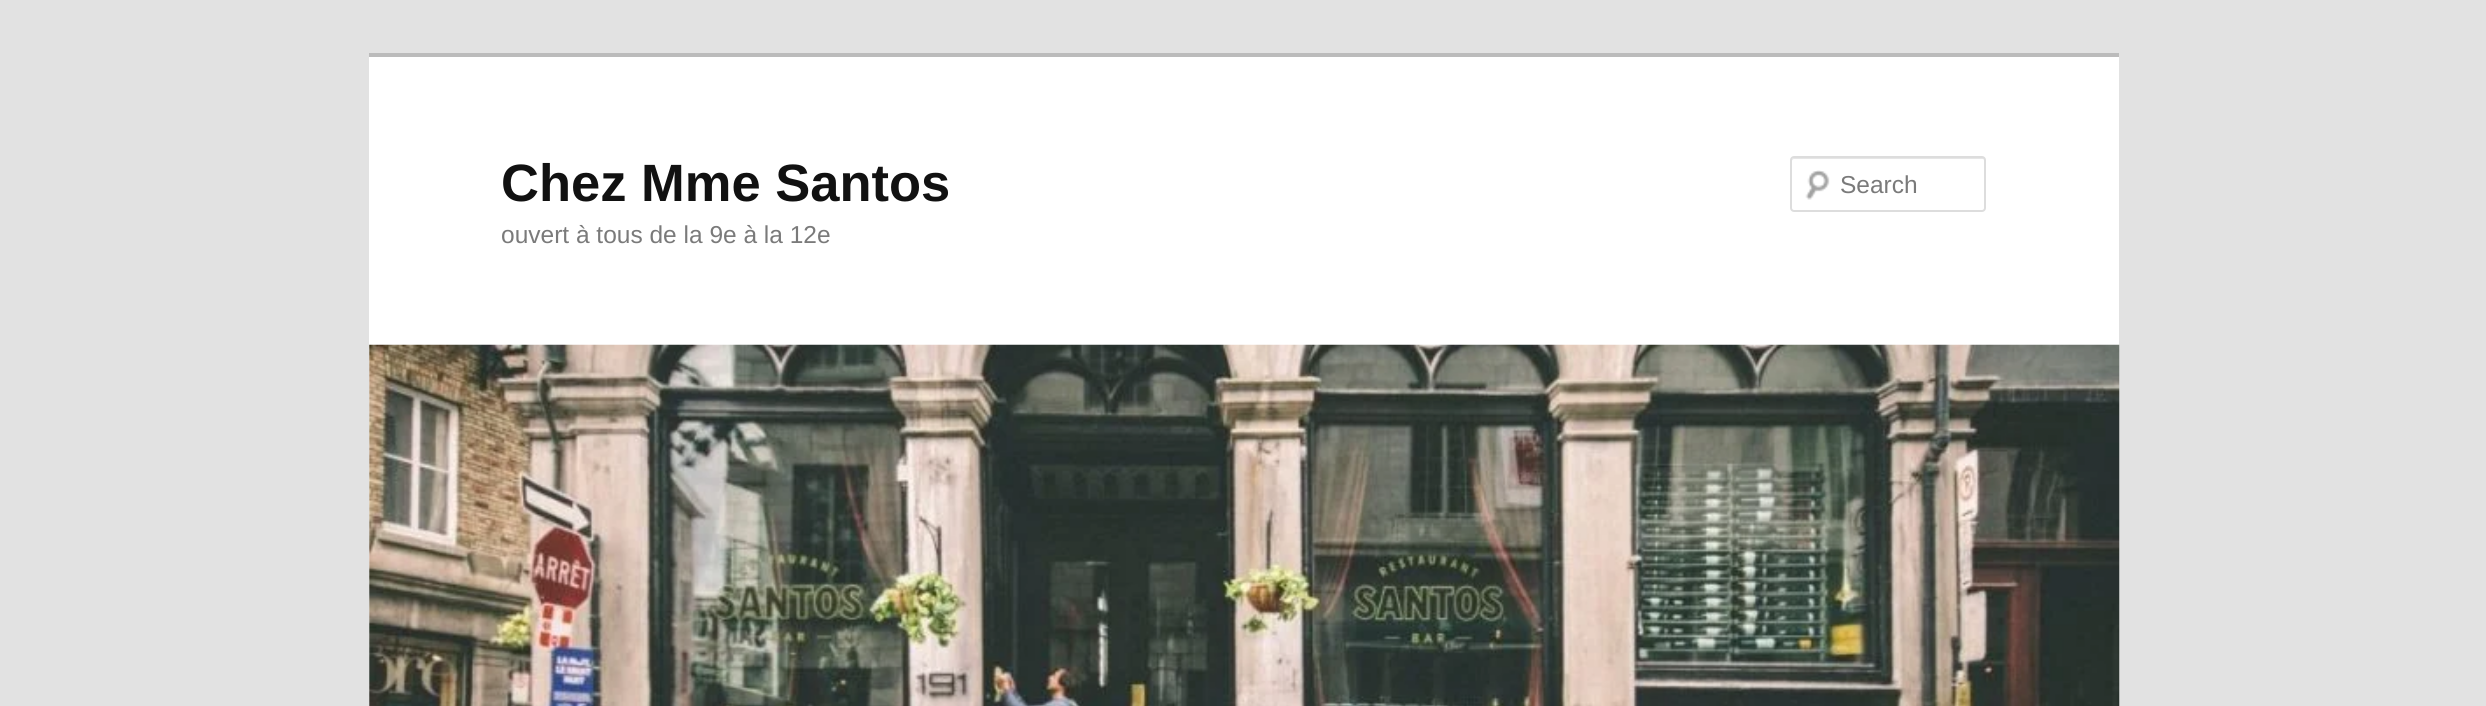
#include <cairo.h>
#include <math.h>
#include <stddef.h>


static void set_color(cairo_t *cr, unsigned color) {
    cairo_set_source_rgb(cr, (color >> 16) / 255.0, (color >> 8 & 255) / 255.0, (color & 255) / 255.0);
}

static void draw_text(cairo_t *cr, double x, double y, const char *s, const char *family, double size, int italic, int bold, unsigned color) {
    cairo_select_font_face(cr, family, italic ? CAIRO_FONT_SLANT_ITALIC : CAIRO_FONT_SLANT_NORMAL,
        bold ? CAIRO_FONT_WEIGHT_BOLD : CAIRO_FONT_WEIGHT_NORMAL);
    cairo_set_font_size(cr, size);
    set_color(cr, color);
    cairo_move_to(cr, x, y);
    cairo_show_text(cr, s);
}

static void fill_rect(cairo_t *cr, double x, double y, double w, double h, unsigned color) {
    set_color(cr, color);
    cairo_rectangle(cr, x, y, w, h);
    cairo_fill(cr);
}

static void rounded_rect(cairo_t *cr, double x, double y, double w, double h, double r) {
    cairo_new_sub_path(cr);
    cairo_arc(cr, x + w - r, y + h - r, r, 0, M_PI / 2);
    cairo_arc(cr, x + r, y + h - r, r, M_PI / 2, M_PI);
    cairo_arc(cr, x + r, y + r, r, M_PI, 1.5 * M_PI);
    cairo_arc(cr, x + w - r, y + r, r, 1.5 * M_PI, 2 * M_PI);
    cairo_close_path(cr);
}

static void draw_image(cairo_t *cr, const char *path, double x, double y, double w, double h) {
    cairo_surface_t *image = cairo_image_surface_create_from_png(path);
    cairo_save(cr);
    cairo_set_source_surface(cr, image, x, y);
    cairo_rectangle(cr, x, y, w, h);
    cairo_fill(cr);
    cairo_restore(cr);
    cairo_surface_destroy(image);
}

int main(void) {
    cairo_surface_t *surface = cairo_image_surface_create(CAIRO_FORMAT_RGB24, 2486, 706);
    cairo_t *cr = cairo_create(surface);
    cairo_font_options_t *options = cairo_font_options_create();
    cairo_font_options_set_hint_metrics(options, CAIRO_HINT_METRICS_OFF);
    cairo_font_options_set_hint_style(options, CAIRO_HINT_STYLE_NONE);
    cairo_set_font_options(cr, options);
    cairo_set_miter_limit(cr, 4);
    set_color(cr, 0xE2E2E2);
    cairo_paint(cr);
    fill_rect(cr, 369, 57, 1750, 649, 0xFFFFFF);
    fill_rect(cr, 369, 53, 1750, 4, 0xBBBBBB);
    draw_text(cr, 501, 201, "Chez Mme Santos", "Liberation Sans", 52.5, 0, 1, 0x111111);
    draw_text(cr, 501, 243, "ouvert à tous de la 9e à la 12e", "Liberation Sans", 24.5, 0, 0, 0x7A7A7A);
    draw_image(cr, "assets/img1.png", 1805, 170, 25, 30);
    set_color(cr, 0xE6E6E6);
    cairo_new_path(cr);
    cairo_move_to(cr, 1794, 159);
    cairo_line_to(cr, 1983, 159);
    cairo_curve_to(cr, 1984, 159, 1984, 160, 1984, 161);
    cairo_line_to(cr, 1984, 210);
    cairo_curve_to(cr, 1985, 209, 1985, 209, 1985, 208);
    cairo_line_to(cr, 1985, 160);
    cairo_curve_to(cr, 1985, 159, 1984, 158, 1983, 158);
    cairo_line_to(cr, 1794, 158);
    cairo_curve_to(cr, 1793, 158, 1792, 159, 1792, 160);
    cairo_line_to(cr, 1792, 161);
    cairo_curve_to(cr, 1792, 160, 1793, 159, 1794, 159);
    cairo_close_path(cr);
    cairo_fill(cr);
    rounded_rect(cr, 1791, 157, 194, 54, 3);
    set_color(cr, 0xDDDDDD);
    cairo_stroke(cr);
    draw_text(cr, 1840, 193, "Search", "Liberation Sans", 24.5, 0, 0, 0x7A7A7A);
    draw_image(cr, "assets/img2.png", 369, 344, 1751, 362);
    cairo_surface_write_to_png(surface, "output.png");
    cairo_font_options_destroy(options);
    cairo_destroy(cr);
    cairo_surface_destroy(surface);
    return 0;
}
